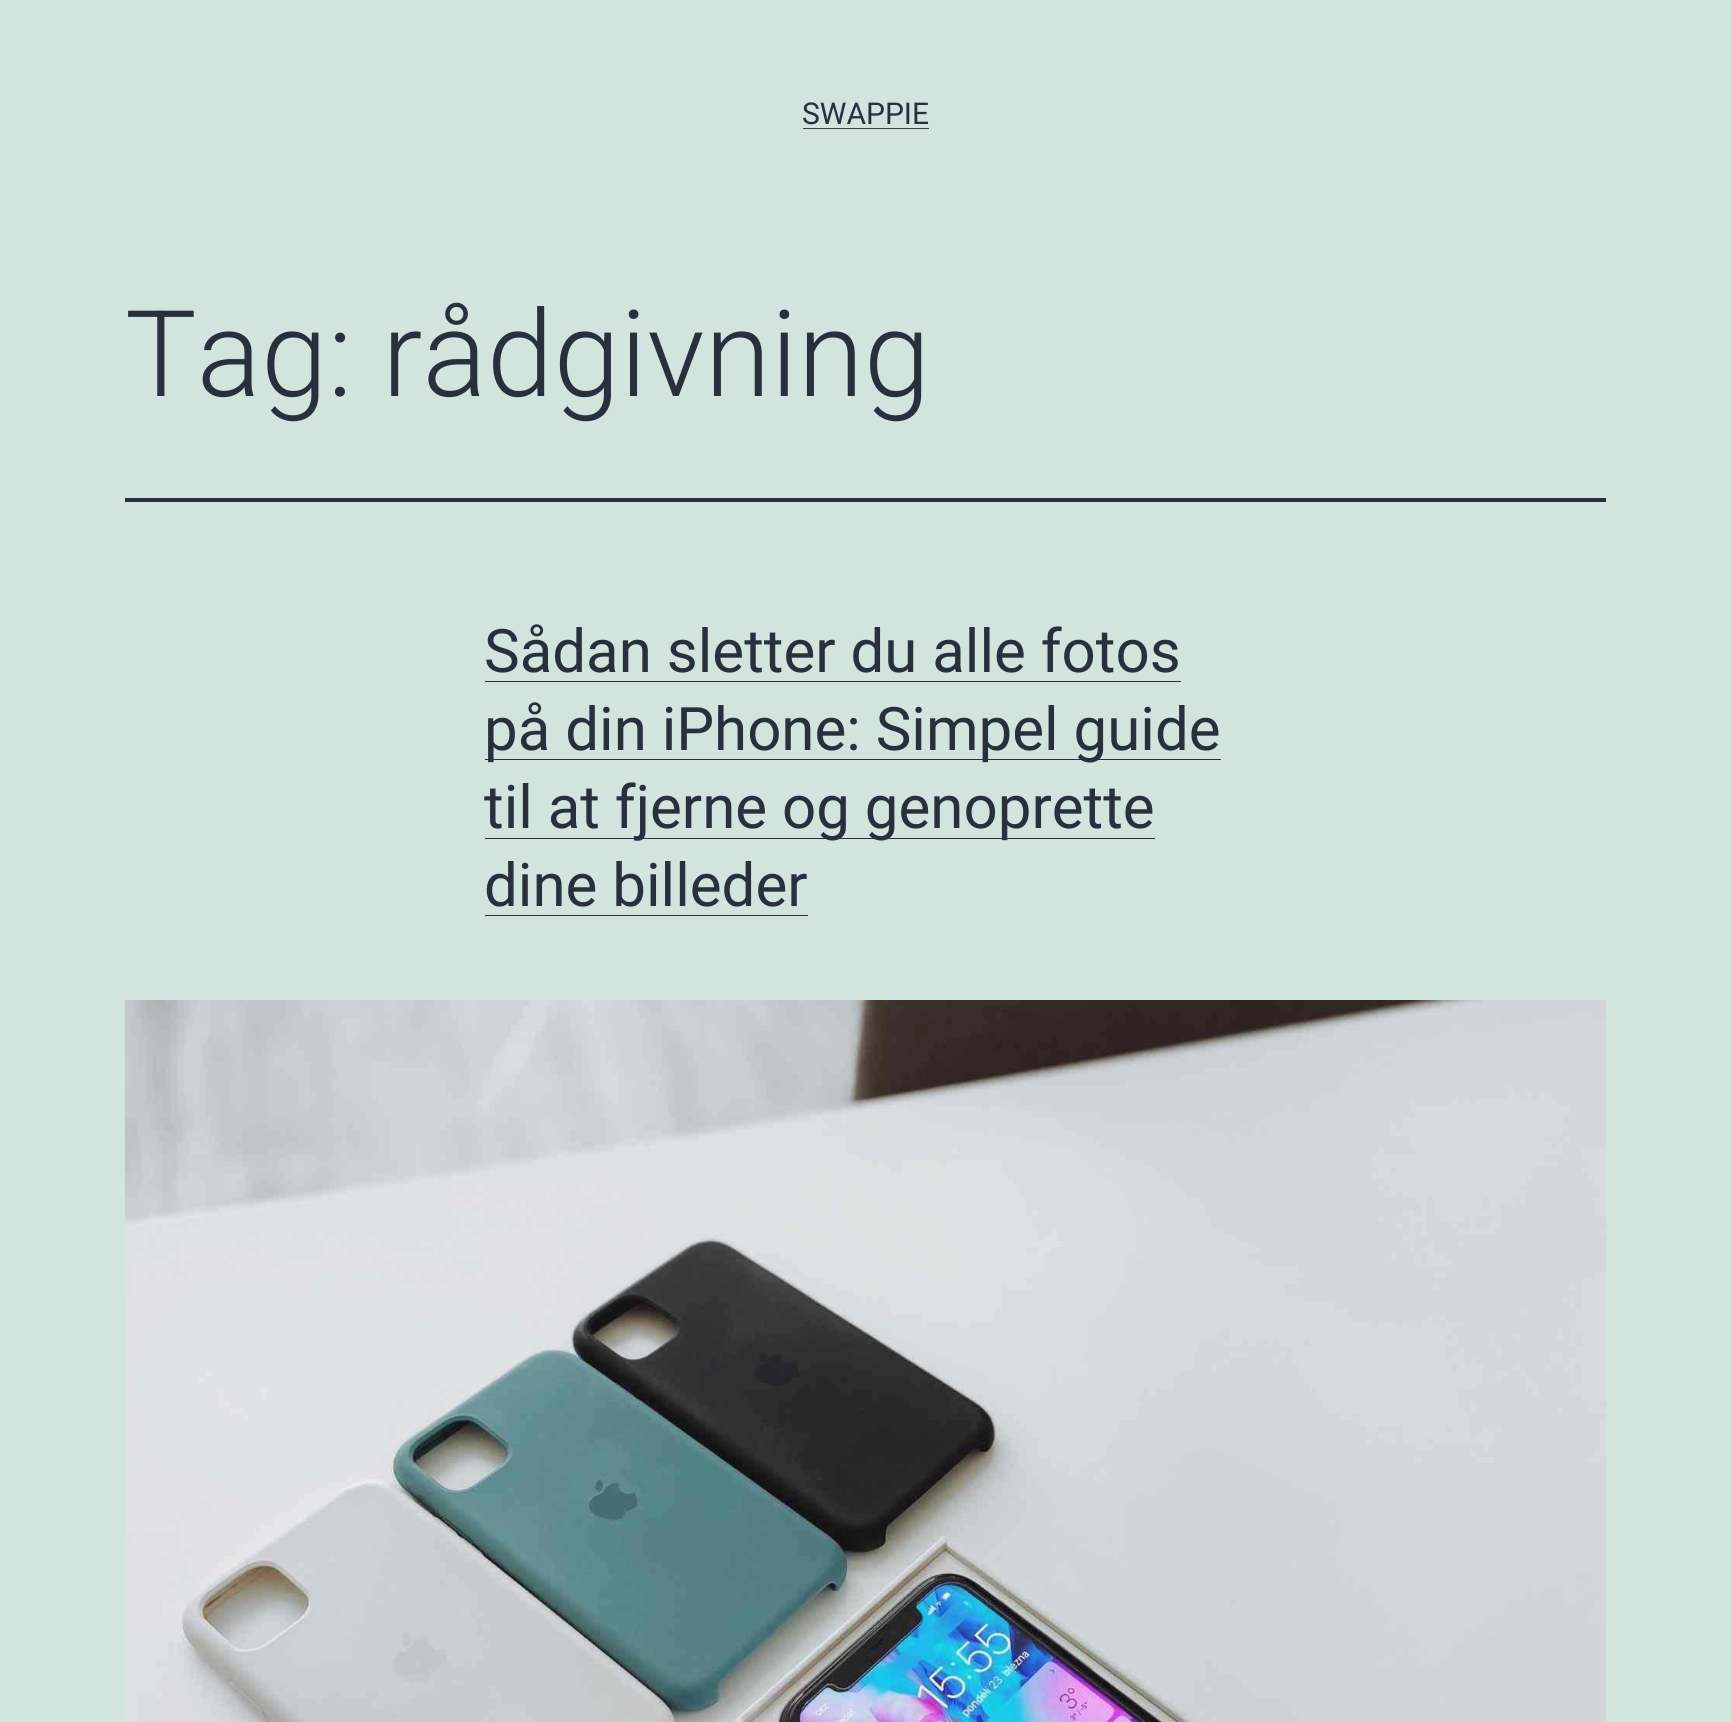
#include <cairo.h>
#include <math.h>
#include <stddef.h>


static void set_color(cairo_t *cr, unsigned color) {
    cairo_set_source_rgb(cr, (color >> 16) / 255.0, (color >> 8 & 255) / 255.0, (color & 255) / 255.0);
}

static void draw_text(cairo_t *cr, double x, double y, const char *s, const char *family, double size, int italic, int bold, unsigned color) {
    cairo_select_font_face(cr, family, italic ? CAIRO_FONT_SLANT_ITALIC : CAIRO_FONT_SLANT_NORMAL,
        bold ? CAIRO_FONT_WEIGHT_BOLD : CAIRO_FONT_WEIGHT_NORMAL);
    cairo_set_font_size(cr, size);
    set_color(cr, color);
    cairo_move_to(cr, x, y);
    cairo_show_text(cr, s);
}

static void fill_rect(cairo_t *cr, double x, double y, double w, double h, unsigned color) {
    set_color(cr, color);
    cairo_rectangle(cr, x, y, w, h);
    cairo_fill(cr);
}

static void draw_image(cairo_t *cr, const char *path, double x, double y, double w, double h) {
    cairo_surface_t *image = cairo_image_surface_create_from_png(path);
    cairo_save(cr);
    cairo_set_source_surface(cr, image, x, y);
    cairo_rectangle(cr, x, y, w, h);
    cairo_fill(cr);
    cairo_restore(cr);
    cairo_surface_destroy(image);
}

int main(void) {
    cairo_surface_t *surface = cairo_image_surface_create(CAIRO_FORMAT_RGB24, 1731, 1722);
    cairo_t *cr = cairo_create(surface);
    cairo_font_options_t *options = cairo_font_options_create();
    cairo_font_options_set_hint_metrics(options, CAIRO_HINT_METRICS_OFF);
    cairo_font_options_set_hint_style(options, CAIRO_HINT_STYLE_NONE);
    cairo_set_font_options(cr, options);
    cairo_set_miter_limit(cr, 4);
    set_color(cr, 0xD1E4DD);
    cairo_paint(cr);
    draw_text(cr, 802, 124, "SWAPPIE", "Roboto", 30, 0, 0, 0x28303D);
    fill_rect(cr, 803, 128, 126, 1, 0x39414D);
    fill_rect(cr, 125, 498, 1481, 4, 0x28303D);
    draw_text(cr, 125, 396, "Tag: rådgivning", "Roboto Light", 120, 0, 0, 0x28303D);
    draw_text(cr, 484, 672, "Sådan sletter du alle fotos", "Roboto", 60, 0, 0, 0x28303D);
    fill_rect(cr, 485, 681, 696, 1, 0x28303D);
    fill_rect(cr, 485, 759, 736, 1, 0x28303D);
    draw_text(cr, 484, 750, "på din iPhone: Simpel guide", "Roboto", 60, 0, 0, 0x28303D);
    fill_rect(cr, 485, 838, 670, 1, 0x28303D);
    draw_text(cr, 484, 828, "til at fjerne og genoprette", "Roboto", 60, 0, 0, 0x28303D);
    draw_text(cr, 484, 906, "dine billeder", "Roboto", 60, 0, 0, 0x28303D);
    fill_rect(cr, 485, 915, 323, 1, 0x28303D);
    draw_image(cr, "assets/img1.png", 125, 1000, 1481, 722);
    cairo_surface_write_to_png(surface, "output.png");
    cairo_font_options_destroy(options);
    cairo_destroy(cr);
    cairo_surface_destroy(surface);
    return 0;
}
